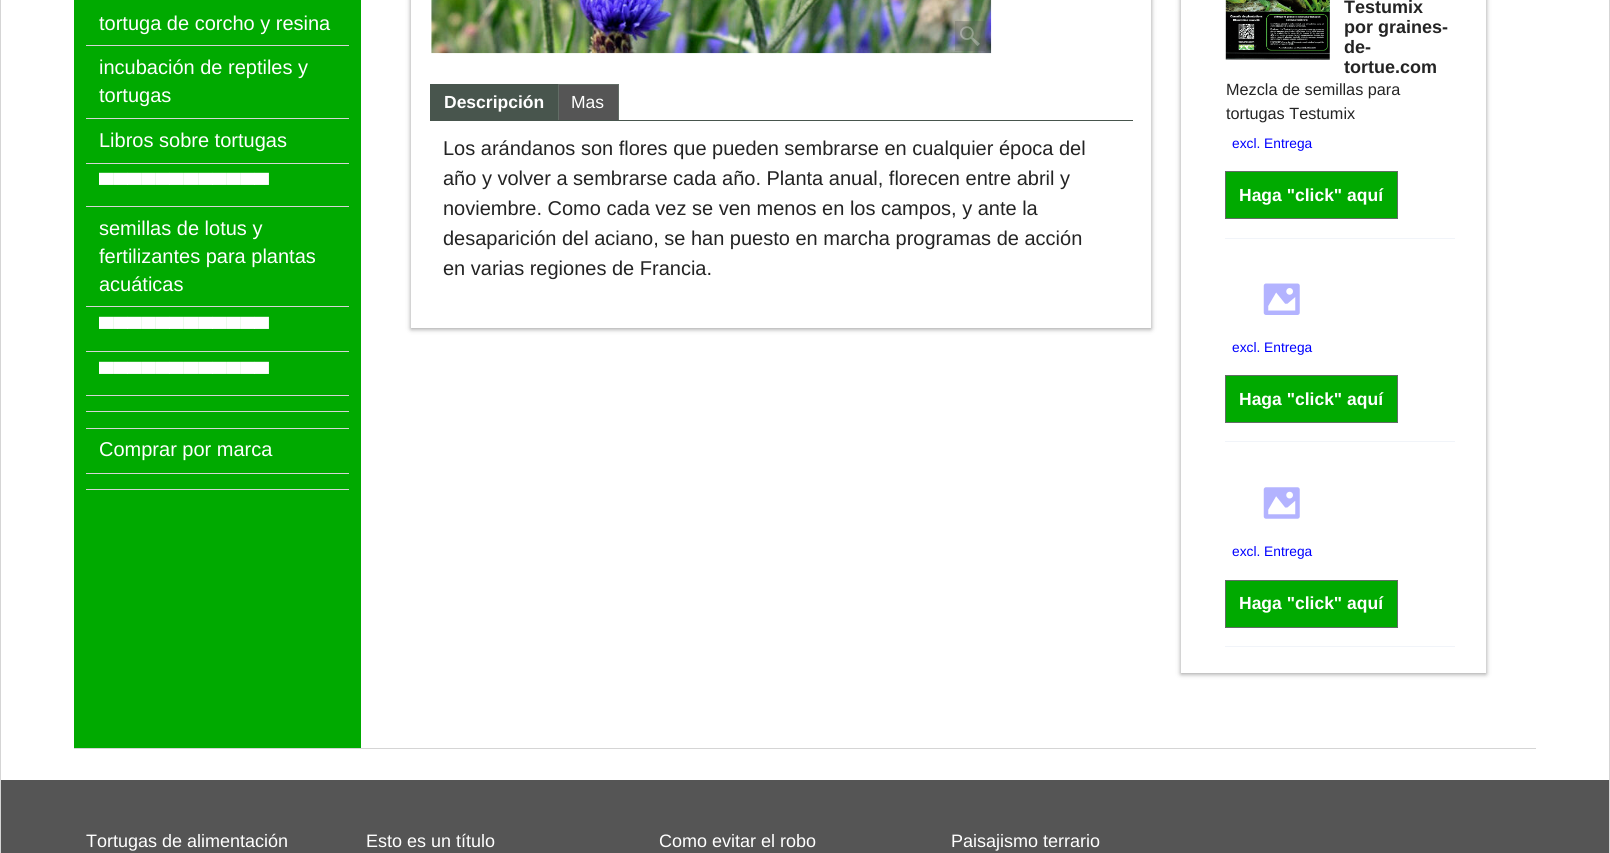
#include <cairo.h>
#include <math.h>
#include <stddef.h>


static void set_color(cairo_t *cr, unsigned color) {
    cairo_set_source_rgb(cr, (color >> 16) / 255.0, (color >> 8 & 255) / 255.0, (color & 255) / 255.0);
}

static void draw_text(cairo_t *cr, double x, double y, const char *s, const char *family, double size, int italic, int bold, unsigned color) {
    cairo_select_font_face(cr, family, italic ? CAIRO_FONT_SLANT_ITALIC : CAIRO_FONT_SLANT_NORMAL,
        bold ? CAIRO_FONT_WEIGHT_BOLD : CAIRO_FONT_WEIGHT_NORMAL);
    cairo_set_font_size(cr, size);
    set_color(cr, color);
    cairo_move_to(cr, x, y);
    cairo_show_text(cr, s);
}

static void fill_rect(cairo_t *cr, double x, double y, double w, double h, unsigned color) {
    set_color(cr, color);
    cairo_rectangle(cr, x, y, w, h);
    cairo_fill(cr);
}

static void rounded_rect(cairo_t *cr, double x, double y, double w, double h, double r) {
    cairo_new_sub_path(cr);
    cairo_arc(cr, x + w - r, y + h - r, r, 0, M_PI / 2);
    cairo_arc(cr, x + r, y + h - r, r, M_PI / 2, M_PI);
    cairo_arc(cr, x + r, y + r, r, M_PI, 1.5 * M_PI);
    cairo_arc(cr, x + w - r, y + r, r, 1.5 * M_PI, 2 * M_PI);
    cairo_close_path(cr);
}

static void draw_shadow(cairo_t *cr, double x, double y, double w, double h, double r, double blur, double alpha) {
    cairo_push_group_with_content(cr, CAIRO_CONTENT_ALPHA);
    cairo_set_operator(cr, CAIRO_OPERATOR_SOURCE);
    for (int i = 15; i >= -15 && fmin(w, h) + blur * i / 3 > 0; i -= 2) {
        double e = blur * i / 6;
        cairo_set_source_rgba(cr, 0, 0, 0, alpha * erfc((i - 1) / 8.5) / 2);
        rounded_rect(cr, x - e, y - e, w + 2 * e, h + 2 * e, fmax(0, fmin(r + e + blur * .6, fmin(w, h) / 2 + e)));
        cairo_fill(cr);
    }
    cairo_pattern_t *soft = cairo_pop_group(cr);
    cairo_mask(cr, soft);
    cairo_pattern_destroy(soft);
}

static void draw_image(cairo_t *cr, const char *path, double x, double y, double w, double h) {
    cairo_surface_t *image = cairo_image_surface_create_from_png(path);
    cairo_save(cr);
    cairo_set_source_surface(cr, image, x, y);
    cairo_rectangle(cr, x, y, w, h);
    cairo_fill(cr);
    cairo_restore(cr);
    cairo_surface_destroy(image);
}

int main(void) {
    cairo_surface_t *surface = cairo_image_surface_create(CAIRO_FORMAT_RGB24, 1610, 853);
    cairo_t *cr = cairo_create(surface);
    cairo_font_options_t *options = cairo_font_options_create();
    cairo_font_options_set_hint_metrics(options, CAIRO_HINT_METRICS_OFF);
    cairo_font_options_set_hint_style(options, CAIRO_HINT_STYLE_NONE);
    cairo_set_font_options(cr, options);
    cairo_set_miter_limit(cr, 4);
    set_color(cr, 0xFFFFFF);
    cairo_paint(cr);
    cairo_rectangle(cr, 0.5, -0.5, 1609, 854);
    set_color(cr, 0xD5D5D5);
    cairo_set_line_width(cr, 1);
    cairo_stroke(cr);
    fill_rect(cr, 74, 0, 287, 748, 0x00AA00);
    fill_rect(cr, 86, 45, 263, 1, 0xD5D5D5);
    draw_text(cr, 99, 30, "tortuga de corcho y resina", "Liberation Sans", 20, 0, 0, 0xFFFFFF);
    fill_rect(cr, 86, 118, 263, 1, 0xD5D5D5);
    draw_text(cr, 99, 74, "incubación de reptiles y", "Liberation Sans", 20, 0, 0, 0xFFFFFF);
    draw_text(cr, 99, 102, "tortugas", "Liberation Sans", 20, 0, 0, 0xFFFFFF);
    fill_rect(cr, 86, 163, 263, 1, 0xD5D5D5);
    draw_text(cr, 99, 147, "Libros sobre tortugas", "Liberation Sans", 20, 0, 0, 0xFFFFFF);
    fill_rect(cr, 86, 206, 263, 1, 0xD5D5D5);
    draw_text(cr, 99, 191, "▀▀▀▀▀▀▀▀▀▀▀▀", "Liberation Sans", 20, 0, 0, 0xFFFFFF);
    fill_rect(cr, 86, 306, 263, 1, 0xD5D5D5);
    draw_text(cr, 99, 235, "semillas de lotus y", "Liberation Sans", 20, 0, 0, 0xFFFFFF);
    draw_text(cr, 99, 263, "fertilizantes para plantas", "Liberation Sans", 20, 0, 0, 0xFFFFFF);
    draw_text(cr, 99, 291, "acuáticas", "Liberation Sans", 20, 0, 0, 0xFFFFFF);
    fill_rect(cr, 86, 351, 263, 1, 0xD5D5D5);
    draw_text(cr, 99, 335, "▀▀▀▀▀▀▀▀▀▀▀▀", "Liberation Sans", 20, 0, 0, 0xFFFFFF);
    fill_rect(cr, 86, 395, 263, 1, 0xD5D5D5);
    draw_text(cr, 99, 380, "▀▀▀▀▀▀▀▀▀▀▀▀", "Liberation Sans", 20, 0, 0, 0xFFFFFF);
    fill_rect(cr, 86, 411, 263, 1, 0xD5D5D5);
    fill_rect(cr, 86, 428, 263, 1, 0xD5D5D5);
    fill_rect(cr, 86, 473, 263, 1, 0xD5D5D5);
    draw_text(cr, 99, 456, "Comprar por marca", "Liberation Sans", 20, 0, 0, 0xFFFFFF);
    fill_rect(cr, 86, 489, 263, 1, 0xD5D5D5);
    cairo_save(cr);
    cairo_set_fill_rule(cr, CAIRO_FILL_RULE_EVEN_ODD);
    cairo_new_path(cr);
    cairo_move_to(cr, 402, 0);
    cairo_line_to(cr, 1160, 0);
    cairo_line_to(cr, 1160, 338);
    cairo_line_to(cr, 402, 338);
    cairo_close_path(cr);
    cairo_move_to(cr, 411, -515);
    cairo_line_to(cr, 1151, -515);
    cairo_line_to(cr, 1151, 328);
    cairo_line_to(cr, 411, 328);
    cairo_close_path(cr);
    cairo_clip(cr);
    set_color(cr, 0x323232);
    draw_shadow(cr, 411, -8, 740, 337, 0, 2.5, 0.5);
    cairo_restore(cr);
    draw_image(cr, "assets/img1.png", 431, 0, 561, 54);
    cairo_set_source_rgba(cr, 0.333, 0.333, 0.333, 0.3);
    cairo_rectangle(cr, 955, 21, 30, 30);
    cairo_fill(cr);
    draw_image(cr, "assets/img2.png", 960, 26, 20, 20);
    fill_rect(cr, 430, 84, 128, 37, 0x48554D);
    draw_text(cr, 444, 108, "Descripción", "Liberation Sans", 17.5, 0, 1, 0xFFFFFF);
    fill_rect(cr, 559, 85, 59, 35, 0x555555);
    fill_rect(cr, 558, 84, 61, 1, 0x626D66);
    fill_rect(cr, 618, 84, 1, 36, 0x626D66);
    fill_rect(cr, 558, 84, 1, 36, 0x626D66);
    draw_text(cr, 571, 108, "Mas", "Liberation Sans", 17.5, 0, 0, 0xFFFFFF);
    fill_rect(cr, 558, 120, 575, 1, 0x48554D);
    draw_text(cr, 443, 155, "Los arándanos son flores que pueden sembrarse en cualquier época del", "Liberation Sans", 20, 0, 0, 0x242424);
    draw_text(cr, 443, 185, "año y volver a sembrarse cada año. Planta anual, florecen entre abril y", "Liberation Sans", 20, 0, 0, 0x242424);
    draw_text(cr, 443, 215, "noviembre. Como cada vez se ven menos en los campos, y ante la", "Liberation Sans", 20, 0, 0, 0x242424);
    draw_text(cr, 443, 245, "desaparición del aciano, se han puesto en marcha programas de acción", "Liberation Sans", 20, 0, 0, 0x242424);
    draw_text(cr, 443, 275, "en varias regiones de Francia.", "Liberation Sans", 20, 0, 0, 0x242424);
    cairo_save(cr);
    cairo_set_fill_rule(cr, CAIRO_FILL_RULE_EVEN_ODD);
    cairo_new_path(cr);
    cairo_move_to(cr, 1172, 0);
    cairo_line_to(cr, 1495, 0);
    cairo_line_to(cr, 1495, 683);
    cairo_line_to(cr, 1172, 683);
    cairo_close_path(cr);
    cairo_move_to(cr, 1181, -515);
    cairo_line_to(cr, 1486, -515);
    cairo_line_to(cr, 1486, 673);
    cairo_line_to(cr, 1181, 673);
    cairo_close_path(cr);
    cairo_clip(cr);
    set_color(cr, 0x323232);
    draw_shadow(cr, 1181, -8, 305, 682, 0, 2.5, 0.5);
    cairo_restore(cr);
    fill_rect(cr, 1225, 238, 230, 1, 0xF1F4F9);
    draw_image(cr, "assets/img3.png", 1225, 0, 105, 60);
    draw_text(cr, 1344, 13, "Testumix", "Liberation Sans", 18, 0, 1, 0x242424);
    draw_text(cr, 1344, 33, "por graines-", "Liberation Sans", 18, 0, 1, 0x242424);
    draw_text(cr, 1344, 53, "de-", "Liberation Sans", 18, 0, 1, 0x242424);
    draw_text(cr, 1344, 73, "tortue.com", "Liberation Sans", 18, 0, 1, 0x242424);
    draw_text(cr, 1226, 95, "Mezcla de semillas para", "Liberation Sans", 16.25, 0, 0, 0x242424);
    draw_text(cr, 1226, 119, "tortugas Testumix", "Liberation Sans", 16.25, 0, 0, 0x242424);
    draw_text(cr, 1232, 148, "excl. Entrega", "Liberation Sans", 13.75, 0, 0, 0x0000FF);
    set_color(cr, 0x00AA00);
    cairo_rectangle(cr, 1225.5, 171.5, 172, 47);
    cairo_fill_preserve(cr);
    set_color(cr, 0x626D66);
    cairo_stroke(cr);
    draw_text(cr, 1239, 201, "Haga \"click\" aquí", "Liberation Sans", 17.5, 0, 1, 0xFFFFFF);
    fill_rect(cr, 1225, 441, 230, 1, 0xF1F4F9);
    draw_image(cr, "assets/img4.png", 1263, 283, 37, 32);
    draw_text(cr, 1232, 352, "excl. Entrega", "Liberation Sans", 13.75, 0, 0, 0x0000FF);
    set_color(cr, 0x00AA00);
    cairo_rectangle(cr, 1225.5, 375.5, 172, 47);
    cairo_fill_preserve(cr);
    set_color(cr, 0x626D66);
    cairo_stroke(cr);
    draw_text(cr, 1239, 405, "Haga \"click\" aquí", "Liberation Sans", 17.5, 0, 1, 0xFFFFFF);
    fill_rect(cr, 1225, 646, 230, 1, 0xF1F4F9);
    draw_image(cr, "assets/img5.png", 1263, 487, 37, 32);
    draw_text(cr, 1232, 556, "excl. Entrega", "Liberation Sans", 13.75, 0, 0, 0x0000FF);
    set_color(cr, 0x00AA00);
    cairo_rectangle(cr, 1225.5, 580.5, 172, 47);
    cairo_fill_preserve(cr);
    set_color(cr, 0x626D66);
    cairo_stroke(cr);
    draw_text(cr, 1239, 609, "Haga \"click\" aquí", "Liberation Sans", 17.5, 0, 1, 0xFFFFFF);
    fill_rect(cr, 74, 748, 1462, 1, 0xD5D5D5);
    fill_rect(cr, 1, 780, 1608, 73, 0x555555);
    draw_text(cr, 86, 847, "Tortugas de alimentación", "Liberation Sans", 18, 0, 0, 0xFFFFFF);
    draw_text(cr, 366, 847, "Esto es un título", "Liberation Sans", 18, 0, 0, 0xFFFFFF);
    draw_text(cr, 659, 847, "Como evitar el robo", "Liberation Sans", 18, 0, 0, 0xFFFFFF);
    draw_text(cr, 951, 847, "Paisajismo terrario", "Liberation Sans", 18, 0, 0, 0xFFFFFF);
    cairo_surface_write_to_png(surface, "output.png");
    cairo_font_options_destroy(options);
    cairo_destroy(cr);
    cairo_surface_destroy(surface);
    return 0;
}
